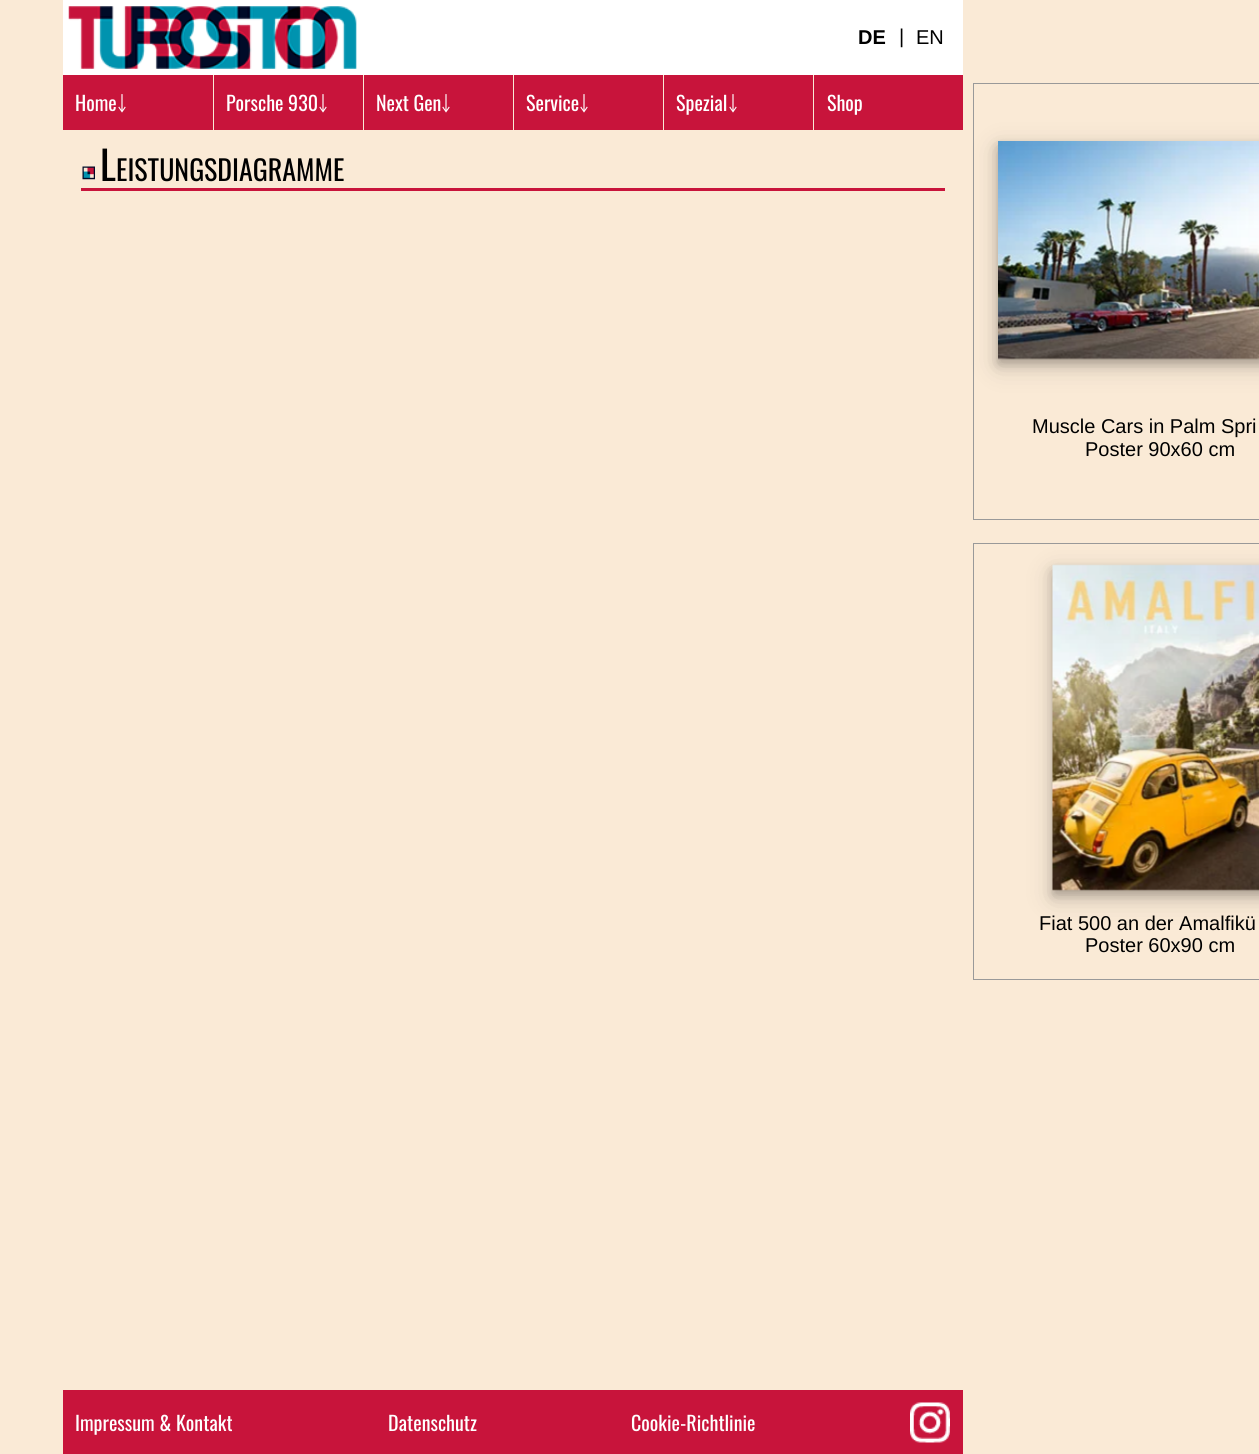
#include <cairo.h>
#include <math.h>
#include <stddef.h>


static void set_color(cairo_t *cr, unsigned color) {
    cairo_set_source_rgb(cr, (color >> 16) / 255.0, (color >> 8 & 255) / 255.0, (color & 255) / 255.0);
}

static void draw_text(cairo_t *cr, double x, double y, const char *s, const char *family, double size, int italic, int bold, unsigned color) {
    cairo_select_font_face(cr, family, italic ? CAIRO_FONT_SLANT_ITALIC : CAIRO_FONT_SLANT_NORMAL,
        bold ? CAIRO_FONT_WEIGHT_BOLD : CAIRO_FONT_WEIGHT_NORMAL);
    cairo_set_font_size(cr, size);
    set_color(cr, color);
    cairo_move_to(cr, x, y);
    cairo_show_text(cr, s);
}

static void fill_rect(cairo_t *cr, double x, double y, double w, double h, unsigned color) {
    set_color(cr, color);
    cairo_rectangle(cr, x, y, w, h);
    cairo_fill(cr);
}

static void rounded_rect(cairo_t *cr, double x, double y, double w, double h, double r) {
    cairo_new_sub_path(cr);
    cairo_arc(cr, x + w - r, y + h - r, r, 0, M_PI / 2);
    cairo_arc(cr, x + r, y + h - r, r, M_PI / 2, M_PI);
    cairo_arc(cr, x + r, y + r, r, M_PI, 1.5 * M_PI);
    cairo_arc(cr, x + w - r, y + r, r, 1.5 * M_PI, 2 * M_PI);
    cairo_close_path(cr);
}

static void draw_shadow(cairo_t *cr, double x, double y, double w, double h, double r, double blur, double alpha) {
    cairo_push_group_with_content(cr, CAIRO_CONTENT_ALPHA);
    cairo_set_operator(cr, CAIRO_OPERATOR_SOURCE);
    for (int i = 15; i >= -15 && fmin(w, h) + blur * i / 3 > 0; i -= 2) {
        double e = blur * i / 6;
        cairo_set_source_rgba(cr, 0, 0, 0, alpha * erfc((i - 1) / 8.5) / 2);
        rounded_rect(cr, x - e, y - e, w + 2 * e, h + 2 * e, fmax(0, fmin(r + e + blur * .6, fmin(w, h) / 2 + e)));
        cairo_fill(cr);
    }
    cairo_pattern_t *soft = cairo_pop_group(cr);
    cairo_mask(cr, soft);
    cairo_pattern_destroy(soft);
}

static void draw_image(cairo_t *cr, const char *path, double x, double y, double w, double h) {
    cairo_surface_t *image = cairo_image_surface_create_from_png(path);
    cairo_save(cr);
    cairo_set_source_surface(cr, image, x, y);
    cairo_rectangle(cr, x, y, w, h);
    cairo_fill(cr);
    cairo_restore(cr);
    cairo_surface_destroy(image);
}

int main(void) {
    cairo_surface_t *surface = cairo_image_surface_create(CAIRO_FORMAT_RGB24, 1259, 1454);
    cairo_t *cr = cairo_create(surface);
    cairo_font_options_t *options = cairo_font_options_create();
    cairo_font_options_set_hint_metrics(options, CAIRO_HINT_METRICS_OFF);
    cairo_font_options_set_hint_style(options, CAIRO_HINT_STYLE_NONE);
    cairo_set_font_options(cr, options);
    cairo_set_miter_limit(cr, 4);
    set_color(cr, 0xFAEAD6);
    cairo_paint(cr);
    fill_rect(cr, 63, 0, 900, 75, 0xFFFFFF);
    draw_image(cr, "assets/img1.png", 68, 6, 289, 63);
    draw_text(cr, 858, 44, "DE", "Liberation Sans", 20, 0, 1, 0x000000);
    draw_text(cr, 899, 43, "|", "Liberation Sans", 20, 0, 0, 0x000000);
    draw_text(cr, 916, 44, "EN", "Liberation Sans", 20, 0, 0, 0x000000);
    fill_rect(cr, 63, 75, 150, 55, 0xC8143B);
    draw_text(cr, 75, 111, "Home", "Oswald", 20, 0, 0, 0xFFFFFF);
    draw_text(cr, 117, 111, "￬", "Chiron Hei HK", 20, 0, 0, 0xFFFFFF);
    fill_rect(cr, 214, 75, 149, 55, 0xC8143B);
    draw_text(cr, 226, 111, "Porsche 930", "Oswald", 20, 0, 0, 0xFFFFFF);
    draw_text(cr, 318, 111, "￬", "Chiron Hei HK", 20, 0, 0, 0xFFFFFF);
    fill_rect(cr, 364, 75, 149, 55, 0xC8143B);
    draw_text(cr, 376, 111, "Next Gen", "Oswald", 20, 0, 0, 0xFFFFFF);
    draw_text(cr, 441, 111, "￬", "Chiron Hei HK", 20, 0, 0, 0xFFFFFF);
    fill_rect(cr, 514, 75, 149, 55, 0xC8143B);
    draw_text(cr, 526, 111, "Service", "Oswald", 20, 0, 0, 0xFFFFFF);
    draw_text(cr, 579, 111, "￬", "Chiron Hei HK", 20, 0, 0, 0xFFFFFF);
    fill_rect(cr, 664, 75, 149, 55, 0xC8143B);
    draw_text(cr, 676, 111, "Spezial", "Oswald", 20, 0, 0, 0xFFFFFF);
    draw_text(cr, 728, 111, "￬", "Chiron Hei HK", 20, 0, 0, 0xFFFFFF);
    cairo_rectangle(cr, 973.5, 83.5, 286, 436);
    set_color(cr, 0x999999);
    cairo_set_line_width(cr, 1);
    cairo_stroke(cr);
    set_color(cr, 0x000000);
    draw_shadow(cr, 998, 149, 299, 217, 0, 12.5, 0.19);
    fill_rect(cr, 814, 75, 149, 55, 0xC8143B);
    draw_text(cr, 827, 111, "Shop", "Oswald", 20, 0, 0, 0xFFFFFF);
    draw_image(cr, "assets/img2.png", 82, 166, 13, 14);
    fill_rect(cr, 81, 188, 864, 3, 0xC8143B);
    draw_text(cr, 100, 181, "L", "Oswald", 40, 0, 0, 0x000000);
    draw_text(cr, 116, 181, "EISTUNGSDIAGRAMME", "Oswald", 28, 0, 0, 0x000000);
    set_color(cr, 0x000000);
    draw_shadow(cr, 998, 146, 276, 218, 0, 5, 0.2);
    draw_image(cr, "assets/img3.png", 998, 141, 261, 219);
    draw_text(cr, 1032, 433, "Muscle Cars in Palm Spri", "Liberation Sans", 20, 0, 0, 0x000000);
    draw_text(cr, 1085, 456, "Poster 90x60 cm", "Liberation Sans", 20, 0, 0, 0x000000);
    cairo_rectangle(cr, 973.5, 543.5, 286, 436);
    set_color(cr, 0x999999);
    cairo_stroke(cr);
    set_color(cr, 0x000000);
    draw_shadow(cr, 1053, 573, 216, 325, 0, 12.5, 0.19);
    draw_shadow(cr, 1053, 570, 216, 325, 0, 5, 0.2);
    draw_image(cr, "assets/img4.png", 1052, 564, 207, 327);
    draw_text(cr, 1039, 930, "Fiat 500 an der Amalfikü", "Liberation Sans", 20, 0, 0, 0x000000);
    draw_text(cr, 1085, 952, "Poster 60x90 cm", "Liberation Sans", 20, 0, 0, 0x000000);
    fill_rect(cr, 63, 1390, 900, 64, 0xC8143B);
    draw_text(cr, 75, 1431, "Impressum & Kontakt", "Oswald", 20, 0, 0, 0xFFFFFF);
    draw_text(cr, 388, 1431, "Datenschutz", "Oswald", 20, 0, 0, 0xFFFFFF);
    draw_text(cr, 631, 1431, "Cookie-Richtlinie", "Oswald", 20, 0, 0, 0xFFFFFF);
    draw_image(cr, "assets/img5.png", 910, 1402, 40, 41);
    cairo_surface_write_to_png(surface, "output.png");
    cairo_font_options_destroy(options);
    cairo_destroy(cr);
    cairo_surface_destroy(surface);
    return 0;
}
